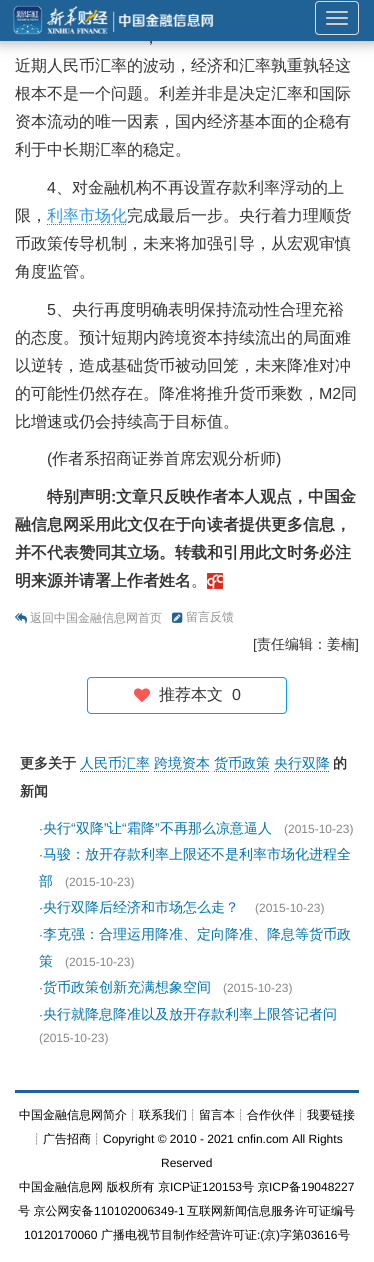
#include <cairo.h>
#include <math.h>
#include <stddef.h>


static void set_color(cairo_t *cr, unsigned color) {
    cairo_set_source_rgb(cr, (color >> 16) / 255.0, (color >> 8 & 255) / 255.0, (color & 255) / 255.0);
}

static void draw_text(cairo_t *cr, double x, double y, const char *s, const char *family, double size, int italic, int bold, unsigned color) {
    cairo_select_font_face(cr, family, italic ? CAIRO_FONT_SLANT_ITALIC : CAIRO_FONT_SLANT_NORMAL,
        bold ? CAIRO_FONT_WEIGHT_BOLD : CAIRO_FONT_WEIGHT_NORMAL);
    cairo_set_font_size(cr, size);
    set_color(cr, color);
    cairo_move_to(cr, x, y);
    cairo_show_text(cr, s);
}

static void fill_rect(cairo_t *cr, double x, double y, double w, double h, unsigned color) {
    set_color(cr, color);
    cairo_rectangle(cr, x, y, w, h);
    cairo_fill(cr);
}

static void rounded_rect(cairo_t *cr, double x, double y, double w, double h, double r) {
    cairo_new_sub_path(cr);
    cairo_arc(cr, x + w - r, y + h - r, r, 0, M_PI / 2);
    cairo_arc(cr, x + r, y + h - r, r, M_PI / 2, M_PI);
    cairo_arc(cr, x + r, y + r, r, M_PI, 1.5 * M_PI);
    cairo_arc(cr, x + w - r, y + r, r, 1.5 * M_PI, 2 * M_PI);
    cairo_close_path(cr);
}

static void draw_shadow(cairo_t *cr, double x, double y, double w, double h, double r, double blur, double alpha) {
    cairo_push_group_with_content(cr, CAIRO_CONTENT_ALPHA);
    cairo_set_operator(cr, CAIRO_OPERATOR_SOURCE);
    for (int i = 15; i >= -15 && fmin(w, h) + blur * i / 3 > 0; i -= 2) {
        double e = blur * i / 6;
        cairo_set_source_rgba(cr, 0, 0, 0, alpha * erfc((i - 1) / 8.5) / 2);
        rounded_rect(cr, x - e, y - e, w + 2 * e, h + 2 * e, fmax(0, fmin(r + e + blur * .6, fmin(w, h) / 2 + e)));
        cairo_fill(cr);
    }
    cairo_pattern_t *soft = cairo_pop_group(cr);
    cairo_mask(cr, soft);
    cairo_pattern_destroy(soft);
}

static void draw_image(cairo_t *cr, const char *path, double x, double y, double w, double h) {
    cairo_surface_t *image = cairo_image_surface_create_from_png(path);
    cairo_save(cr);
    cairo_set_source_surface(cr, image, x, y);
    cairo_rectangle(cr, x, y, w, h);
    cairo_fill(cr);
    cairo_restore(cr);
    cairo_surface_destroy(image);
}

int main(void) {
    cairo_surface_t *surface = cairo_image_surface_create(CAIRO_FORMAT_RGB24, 374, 1262);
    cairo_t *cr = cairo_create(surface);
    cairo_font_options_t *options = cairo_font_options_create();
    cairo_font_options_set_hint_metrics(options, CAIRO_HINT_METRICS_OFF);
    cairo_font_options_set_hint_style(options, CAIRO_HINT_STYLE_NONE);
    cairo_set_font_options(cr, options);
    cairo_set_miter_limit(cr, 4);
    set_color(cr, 0xFFFFFF);
    cairo_paint(cr);
    set_color(cr, 0x000000);
    draw_shadow(cr, 0, 0, 374, 41, 0, 7.5, 0.4);
    fill_rect(cr, 0, 0, 374, 41, 0x206295);
    draw_image(cr, "assets/img1.png", 13, 5, 201, 30);
    rounded_rect(cr, 315.5, 1.5, 43, 33, 3.5);
    set_color(cr, 0xDDDDDD);
    cairo_set_line_width(cr, 1);
    cairo_stroke(cr);
    set_color(cr, 0xCCCCCC);
    rounded_rect(cr, 326, 11, 22, 2, 1);
    cairo_fill(cr);
    rounded_rect(cr, 326, 17, 22, 2, 1);
    cairo_fill(cr);
    rounded_rect(cr, 326, 23, 22, 2, 1);
    cairo_fill(cr);
    draw_text(cr, 143, 43, "，", "WenQuanYi Zen Hei Medium", 16, 0, 0, 0x333333);
    draw_text(cr, 15, 71, "近期人民币汇率的波动，经济和汇率孰重孰轻这", "WenQuanYi Zen Hei Medium", 16, 0, 0, 0x333333);
    draw_text(cr, 15, 99, "根本不是一个问题。利差并非是决定汇率和国际", "WenQuanYi Zen Hei Medium", 16, 0, 0, 0x333333);
    draw_text(cr, 15, 127, "资本流动的唯一因素，国内经济基本面的企稳有", "WenQuanYi Zen Hei Medium", 16, 0, 0, 0x333333);
    draw_text(cr, 15, 155, "利于中长期汇率的稳定。", "WenQuanYi Zen Hei Medium", 16, 0, 0, 0x333333);
    draw_text(cr, 47, 193, "4", "Liberation Sans", 16, 0, 0, 0x333333);
    draw_text(cr, 56, 193, "、对金融机构不再设置存款利率浮动的上", "WenQuanYi Zen Hei Medium", 16, 0, 0, 0x333333);
    draw_text(cr, 15, 221, "限，", "WenQuanYi Zen Hei Medium", 16, 0, 0, 0x333333);
    draw_text(cr, 47, 221, "利率市场化", "WenQuanYi Zen Hei Medium", 16, 0, 0, 0x2D96E9);
    cairo_new_path(cr);
    cairo_move_to(cr, 47, 224.5);
    cairo_line_to(cr, 127, 224.5);
    set_color(cr, 0x536DA6);
    cairo_set_dash(cr, (double[]){1, 1}, 2, 0);
    cairo_stroke(cr);
    draw_text(cr, 127, 221, "完成最后一步。央行着力理顺货", "WenQuanYi Zen Hei Medium", 16, 0, 0, 0x333333);
    draw_text(cr, 15, 249, "币政策传导机制，未来将加强引导，从宏观审慎", "WenQuanYi Zen Hei Medium", 16, 0, 0, 0x333333);
    draw_text(cr, 15, 277, "角度监管。", "WenQuanYi Zen Hei Medium", 16, 0, 0, 0x333333);
    draw_text(cr, 47, 315, "5", "Liberation Sans", 16, 0, 0, 0x333333);
    draw_text(cr, 56, 315, "、央行再度明确表明保持流动性合理充裕", "WenQuanYi Zen Hei Medium", 16, 0, 0, 0x333333);
    draw_text(cr, 15, 343, "的态度。预计短期内跨境资本持续流出的局面难", "WenQuanYi Zen Hei Medium", 16, 0, 0, 0x333333);
    draw_text(cr, 15, 371, "以逆转，造成基础货币被动回笼，未来降准对冲", "WenQuanYi Zen Hei Medium", 16, 0, 0, 0x333333);
    draw_text(cr, 15, 399, "的可能性仍然存在。降准将推升货币乘数，", "WenQuanYi Zen Hei Medium", 16, 0, 0, 0x333333);
    draw_text(cr, 319, 399, "M2", "Liberation Sans", 16, 0, 0, 0x333333);
    draw_text(cr, 341, 399, "同", "WenQuanYi Zen Hei Medium", 16, 0, 0, 0x333333);
    draw_text(cr, 15, 427, "比增速或仍会持续高于目标值。", "WenQuanYi Zen Hei Medium", 16, 0, 0, 0x333333);
    draw_text(cr, 47, 464, "(", "Liberation Sans", 16, 0, 0, 0x333333);
    draw_text(cr, 52, 464, "作者系招商证券首席宏观分析师", "WenQuanYi Zen Hei Medium", 16, 0, 0, 0x333333);
    draw_text(cr, 276, 464, ")", "Liberation Sans", 16, 0, 0, 0x333333);
    draw_text(cr, 47, 502, "特别声明", "WenQuanYi Zen Hei", 16, 0, 1, 0x333333);
    draw_text(cr, 111, 502, ":", "Liberation Sans", 16, 0, 1, 0x333333);
    draw_text(cr, 116, 502, "文章只反映作者本人观点，中国金", "WenQuanYi Zen Hei", 16, 0, 1, 0x333333);
    draw_text(cr, 15, 530, "融信息网采用此文仅在于向读者提供更多信息，", "WenQuanYi Zen Hei", 16, 0, 1, 0x333333);
    draw_text(cr, 15, 558, "并不代表赞同其立场。转载和引用此文时务必注", "WenQuanYi Zen Hei", 16, 0, 1, 0x333333);
    draw_text(cr, 15, 586, "明来源并请署上作者姓名", "WenQuanYi Zen Hei", 16, 0, 1, 0x333333);
    draw_text(cr, 191, 586, "。", "WenQuanYi Zen Hei Medium", 16, 0, 0, 0x333333);
    draw_image(cr, "assets/img2.png", 207, 573, 16, 16);
    draw_image(cr, "assets/img3.png", 15, 613, 12, 11);
    draw_text(cr, 30, 622, "返回中国金融信息网首页", "WenQuanYi Zen Hei Medium", 12, 0, 0, 0x929292);
    draw_image(cr, "assets/img4.png", 172, 612, 11, 11);
    draw_text(cr, 186, 621, "留言反馈", "WenQuanYi Zen Hei Medium", 12, 0, 0, 0x929292);
    draw_text(cr, 253, 649, "[", "Liberation Sans", 14, 0, 0, 0x333333);
    draw_text(cr, 257, 649, "责任编辑：姜楠", "WenQuanYi Zen Hei Medium", 14, 0, 0, 0x333333);
    draw_text(cr, 355, 649, "]", "Liberation Sans", 14, 0, 0, 0x333333);
    rounded_rect(cr, 87.5, 677.5, 199, 36, 3.5);
    set_color(cr, 0x00A3DE);
    cairo_set_dash(cr, NULL, 0, 0);
    cairo_stroke(cr);
    draw_image(cr, "assets/img5.png", 134, 688, 16, 15);
    draw_text(cr, 159, 700, "推荐本文", "WenQuanYi Zen Hei Medium", 16, 0, 0, 0x333333);
    draw_text(cr, 232, 700, "0", "Liberation Sans", 16, 0, 0, 0x333333);
    draw_text(cr, 20, 768, "更多关于", "WenQuanYi Zen Hei", 14, 0, 1, 0x333333);
    draw_text(cr, 80, 768, "人民币汇率", "WenQuanYi Zen Hei Medium", 14, 0, 0, 0x0072B3);
    cairo_new_path(cr);
    cairo_move_to(cr, 80, 771.5);
    cairo_line_to(cr, 150, 771.5);
    cairo_set_dash(cr, (double[]){1, 1}, 2, 0);
    cairo_stroke(cr);
    draw_text(cr, 154, 768, "跨境资本", "WenQuanYi Zen Hei Medium", 14, 0, 0, 0x0072B3);
    cairo_new_path(cr);
    cairo_move_to(cr, 154, 771.5);
    cairo_line_to(cr, 210, 771.5);
    cairo_stroke(cr);
    draw_text(cr, 214, 768, "货币政策", "WenQuanYi Zen Hei Medium", 14, 0, 0, 0x0072B3);
    cairo_new_path(cr);
    cairo_move_to(cr, 214, 771.5);
    cairo_line_to(cr, 270, 771.5);
    cairo_stroke(cr);
    draw_text(cr, 274, 768, "央行双降", "WenQuanYi Zen Hei Medium", 14, 0, 0, 0x0072B3);
    cairo_new_path(cr);
    cairo_move_to(cr, 274, 771.5);
    cairo_line_to(cr, 330, 771.5);
    cairo_stroke(cr);
    draw_text(cr, 333, 768, "的", "WenQuanYi Zen Hei", 14, 0, 1, 0x333333);
    draw_text(cr, 20, 796, "新闻", "WenQuanYi Zen Hei", 14, 0, 1, 0x333333);
    draw_text(cr, 39, 833, "·", "Liberation Sans", 12, 0, 0, 0x333333);
    draw_text(cr, 43, 833, "央行", "WenQuanYi Zen Hei Medium", 14, 0, 0, 0x0072B3);
    draw_text(cr, 71, 833, "“", "Liberation Sans", 14, 0, 0, 0x0072B3);
    draw_text(cr, 76, 833, "双降", "WenQuanYi Zen Hei Medium", 14, 0, 0, 0x0072B3);
    draw_text(cr, 104, 833, "”", "Liberation Sans", 14, 0, 0, 0x0072B3);
    draw_text(cr, 108, 833, "让", "WenQuanYi Zen Hei Medium", 14, 0, 0, 0x0072B3);
    draw_text(cr, 122, 833, "“", "Liberation Sans", 14, 0, 0, 0x0072B3);
    draw_text(cr, 127, 833, "霜降", "WenQuanYi Zen Hei Medium", 14, 0, 0, 0x0072B3);
    draw_text(cr, 155, 833, "”", "Liberation Sans", 14, 0, 0, 0x0072B3);
    draw_text(cr, 160, 833, "不再那么凉意逼人", "WenQuanYi Zen Hei Medium", 14, 0, 0, 0x0072B3);
    draw_text(cr, 284, 833, "(2015-10-23)", "Liberation Sans", 12, 0, 0, 0x868686);
    draw_text(cr, 39, 859, "·", "Liberation Sans", 12, 0, 0, 0x333333);
    draw_text(cr, 43, 859, "马骏：放开存款利率上限还不是利率市场化进程全", "WenQuanYi Zen Hei Medium", 14, 0, 0, 0x0072B3);
    draw_text(cr, 39, 886, "部", "WenQuanYi Zen Hei Medium", 14, 0, 0, 0x0072B3);
    draw_text(cr, 65, 886, "(2015-10-23)", "Liberation Sans", 12, 0, 0, 0x868686);
    draw_text(cr, 39, 912, "·", "Liberation Sans", 12, 0, 0, 0x333333);
    draw_text(cr, 43, 912, "央行双降后经济和市场怎么走？", "WenQuanYi Zen Hei Medium", 14, 0, 0, 0x0072B3);
    draw_text(cr, 255, 912, "(2015-10-23)", "Liberation Sans", 12, 0, 0, 0x868686);
    draw_text(cr, 39, 939, "·", "Liberation Sans", 12, 0, 0, 0x333333);
    draw_text(cr, 43, 939, "李克强：合理运用降准、定向降准、降息等货币政", "WenQuanYi Zen Hei Medium", 14, 0, 0, 0x0072B3);
    draw_text(cr, 39, 966, "策", "WenQuanYi Zen Hei Medium", 14, 0, 0, 0x0072B3);
    draw_text(cr, 65, 966, "(2015-10-23)", "Liberation Sans", 12, 0, 0, 0x868686);
    draw_text(cr, 39, 992, "·", "Liberation Sans", 12, 0, 0, 0x333333);
    draw_text(cr, 43, 992, "货币政策创新充满想象空间", "WenQuanYi Zen Hei Medium", 14, 0, 0, 0x0072B3);
    draw_text(cr, 223, 992, "(2015-10-23)", "Liberation Sans", 12, 0, 0, 0x868686);
    draw_text(cr, 39, 1019, "·", "Liberation Sans", 12, 0, 0, 0x333333);
    draw_text(cr, 43, 1019, "央行就降息降准以及放开存款利率上限答记者问", "WenQuanYi Zen Hei Medium", 14, 0, 0, 0x0072B3);
    draw_text(cr, 39, 1042, "(2015-10-23)", "Liberation Sans", 12, 0, 0, 0x868686);
    fill_rect(cr, 15, 1090, 344, 3, 0x206295);
    draw_text(cr, 19, 1119, "中国金融信息网简介┊联系我们┊留言本┊合作伙伴┊我要链接", "WenQuanYi Zen Hei Medium", 12, 0, 0, 0x000000);
    draw_text(cr, 31, 1143, "┊广告招商┊", "WenQuanYi Zen Hei Medium", 12, 0, 0, 0x000000);
    draw_text(cr, 103, 1143, "Copyright © 2010 - 2021 cnfin.com All Rights", "Liberation Sans", 12, 0, 0, 0x000000);
    draw_text(cr, 161, 1167, "Reserved", "Liberation Sans", 12, 0, 0, 0x000000);
    draw_text(cr, 19, 1191, "中国金融信息网 版权所有 京", "WenQuanYi Zen Hei Medium", 12, 0, 0, 0x000000);
    draw_text(cr, 170, 1191, "ICP", "Liberation Sans", 12, 0, 0, 0x000000);
    draw_text(cr, 190, 1191, "证", "WenQuanYi Zen Hei Medium", 12, 0, 0, 0x000000);
    draw_text(cr, 202, 1191, "120153", "Liberation Sans", 12, 0, 0, 0x000000);
    draw_text(cr, 242, 1191, "号 京", "WenQuanYi Zen Hei Medium", 12, 0, 0, 0x000000);
    draw_text(cr, 269, 1191, "ICP", "Liberation Sans", 12, 0, 0, 0x000000);
    draw_text(cr, 289, 1191, "备", "WenQuanYi Zen Hei Medium", 12, 0, 0, 0x000000);
    draw_text(cr, 301, 1191, "19048227", "Liberation Sans", 12, 0, 0, 0x000000);
    draw_text(cr, 18, 1215, "号 京公网安备", "WenQuanYi Zen Hei Medium", 12, 0, 0, 0x000000);
    draw_text(cr, 94, 1215, "110102006349-1", "Liberation Sans", 12, 0, 0, 0x000000);
    draw_text(cr, 187, 1215, "互联网新闻信息服务许可证编号", "WenQuanYi Zen Hei Medium", 12, 0, 0, 0x000000);
    draw_text(cr, 24, 1239, "10120170060", "Liberation Sans", 12, 0, 0, 0x000000);
    draw_text(cr, 101, 1239, "广播电视节目制作经营许可证", "WenQuanYi Zen Hei Medium", 12, 0, 0, 0x000000);
    draw_text(cr, 257, 1239, ":(", "Liberation Sans", 12, 0, 0, 0x000000);
    draw_text(cr, 264, 1239, "京", "WenQuanYi Zen Hei Medium", 12, 0, 0, 0x000000);
    draw_text(cr, 276, 1239, ")", "Liberation Sans", 12, 0, 0, 0x000000);
    draw_text(cr, 280, 1239, "字第", "WenQuanYi Zen Hei Medium", 12, 0, 0, 0x000000);
    draw_text(cr, 304, 1239, "03616", "Liberation Sans", 12, 0, 0, 0x000000);
    draw_text(cr, 338, 1239, "号", "WenQuanYi Zen Hei Medium", 12, 0, 0, 0x000000);
    cairo_surface_write_to_png(surface, "output.png");
    cairo_font_options_destroy(options);
    cairo_destroy(cr);
    cairo_surface_destroy(surface);
    return 0;
}
